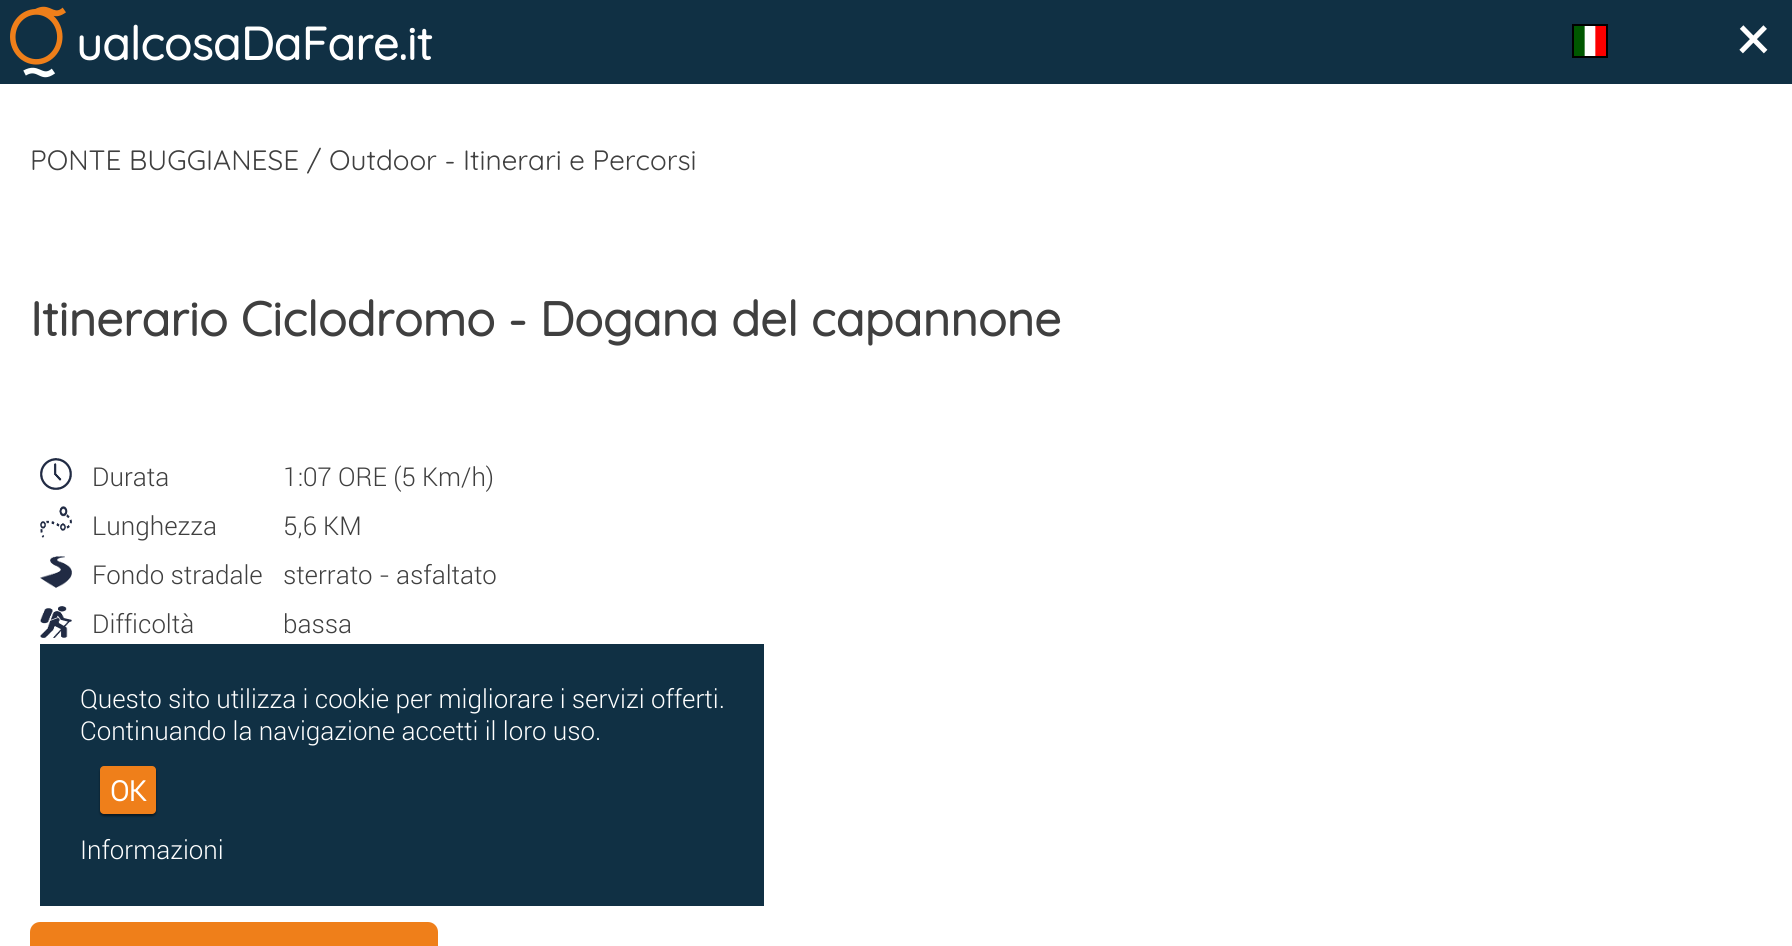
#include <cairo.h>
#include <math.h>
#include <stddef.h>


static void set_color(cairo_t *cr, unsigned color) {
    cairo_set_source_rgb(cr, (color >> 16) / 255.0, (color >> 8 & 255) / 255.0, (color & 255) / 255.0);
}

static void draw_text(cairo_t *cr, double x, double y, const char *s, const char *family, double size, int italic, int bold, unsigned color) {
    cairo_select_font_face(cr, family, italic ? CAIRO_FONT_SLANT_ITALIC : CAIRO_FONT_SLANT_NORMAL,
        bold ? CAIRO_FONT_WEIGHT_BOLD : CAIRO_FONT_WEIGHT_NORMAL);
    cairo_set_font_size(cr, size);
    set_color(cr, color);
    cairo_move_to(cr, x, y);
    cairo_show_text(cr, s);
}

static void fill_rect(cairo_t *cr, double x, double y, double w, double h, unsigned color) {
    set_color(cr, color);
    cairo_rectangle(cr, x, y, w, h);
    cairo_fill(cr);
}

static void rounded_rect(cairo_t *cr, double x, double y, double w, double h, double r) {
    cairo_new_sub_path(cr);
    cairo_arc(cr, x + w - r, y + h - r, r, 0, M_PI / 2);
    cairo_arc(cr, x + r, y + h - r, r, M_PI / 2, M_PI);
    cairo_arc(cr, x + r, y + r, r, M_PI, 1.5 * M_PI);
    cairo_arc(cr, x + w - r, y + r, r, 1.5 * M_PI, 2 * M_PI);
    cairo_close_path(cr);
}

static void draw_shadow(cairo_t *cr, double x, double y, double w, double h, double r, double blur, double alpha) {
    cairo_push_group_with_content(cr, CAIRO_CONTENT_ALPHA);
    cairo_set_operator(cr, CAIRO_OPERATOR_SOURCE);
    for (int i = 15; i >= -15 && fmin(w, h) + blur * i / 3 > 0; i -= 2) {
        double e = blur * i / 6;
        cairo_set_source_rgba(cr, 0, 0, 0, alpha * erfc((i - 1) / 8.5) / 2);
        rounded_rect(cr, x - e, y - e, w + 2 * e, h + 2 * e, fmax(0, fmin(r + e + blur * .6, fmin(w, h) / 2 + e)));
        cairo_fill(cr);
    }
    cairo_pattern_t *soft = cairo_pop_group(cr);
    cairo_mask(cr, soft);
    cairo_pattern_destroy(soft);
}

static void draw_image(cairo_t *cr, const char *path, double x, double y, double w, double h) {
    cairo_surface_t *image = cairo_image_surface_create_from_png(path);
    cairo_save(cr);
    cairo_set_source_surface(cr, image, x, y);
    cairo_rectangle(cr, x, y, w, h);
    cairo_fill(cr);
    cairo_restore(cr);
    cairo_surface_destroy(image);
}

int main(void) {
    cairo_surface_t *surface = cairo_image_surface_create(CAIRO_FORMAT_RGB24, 1792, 946);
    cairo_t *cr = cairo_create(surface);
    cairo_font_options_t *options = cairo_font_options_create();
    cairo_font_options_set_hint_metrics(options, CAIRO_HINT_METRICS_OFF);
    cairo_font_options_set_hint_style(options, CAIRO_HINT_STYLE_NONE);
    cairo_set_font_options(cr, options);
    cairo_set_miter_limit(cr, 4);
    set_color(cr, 0xFFFFFF);
    cairo_paint(cr);
    fill_rect(cr, 0, 0, 1792, 84, 0x103044);
    draw_image(cr, "assets/img1.png", 10, 6, 56, 72);
    draw_text(cr, 76, 60, "ualcosaDaFare.it", "Quicksand", 46, 0, 1, 0xFFFFFF);
    draw_image(cr, "assets/img2.png", 1574, 26, 32, 30);
    cairo_rectangle(cr, 1573, 25, 34, 32);
    set_color(cr, 0x000000);
    cairo_stroke(cr);
    draw_text(cr, 1737, 60, "×", "Roboto", 60, 0, 1, 0xFFFFFF);
    draw_text(cr, 30, 170, "PONTE BUGGIANESE / Outdoor - Itinerari e Percorsi", "Quicksand", 28, 0, 0, 0x3F3F3F);
    draw_text(cr, 30, 336, "Itinerario Ciclodromo - Dogana del capannone", "Quicksand", 48, 0, 1, 0x3F3F3F);
    draw_image(cr, "assets/img3.png", 40, 458, 32, 32);
    draw_text(cr, 92, 486, "Durata", "Roboto Light", 26, 0, 0, 0x3F3F3F);
    draw_text(cr, 283, 486, "1:07 ORE (5 Km/h)", "Roboto Light", 26, 0, 0, 0x3F3F3F);
    draw_image(cr, "assets/img4.png", 40, 506, 32, 32);
    draw_text(cr, 92, 535, "Lunghezza", "Roboto Light", 26, 0, 0, 0x3F3F3F);
    draw_text(cr, 283, 535, "5,6 KM", "Roboto Light", 26, 0, 0, 0x3F3F3F);
    draw_image(cr, "assets/img5.png", 40, 556, 32, 32);
    draw_text(cr, 92, 584, "Fondo stradale", "Roboto Light", 26, 0, 0, 0x3F3F3F);
    draw_text(cr, 283, 584, "sterrato - asfaltato", "Roboto Light", 26, 0, 0, 0x3F3F3F);
    draw_image(cr, "assets/img6.png", 40, 606, 32, 32);
    draw_text(cr, 92, 633, "Difficoltà", "Roboto Light", 26, 0, 0, 0x3F3F3F);
    draw_text(cr, 283, 633, "bassa", "Roboto Light", 26, 0, 0, 0x3F3F3F);
    set_color(cr, 0xEF7F1A);
    cairo_new_path(cr);
    cairo_move_to(cr, 40, 922);
    cairo_line_to(cr, 428, 922);
    cairo_curve_to(cr, 433.5, 922, 438, 926.5, 438, 932);
    cairo_line_to(cr, 438, 946);
    cairo_line_to(cr, 30, 946);
    cairo_line_to(cr, 30, 932);
    cairo_curve_to(cr, 30, 926.5, 34.5, 922, 40, 922);
    cairo_close_path(cr);
    cairo_fill(cr);
    fill_rect(cr, 40, 644, 724, 262, 0x103044);
    draw_text(cr, 80, 708, "Questo sito utilizza i cookie per migliorare i servizi offerti.", "Roboto Light", 26, 0, 0, 0xFFFFFF);
    draw_text(cr, 80, 740, "Continuando la navigazione accetti il loro uso.", "Roboto Light", 26, 0, 0, 0xFFFFFF);
    set_color(cr, 0x000000);
    draw_shadow(cr, 100, 768, 56, 48, 4, 1, 0.5);
    set_color(cr, 0xEF7F1A);
    rounded_rect(cr, 100, 766, 56, 48, 4);
    cairo_fill(cr);
    draw_text(cr, 110, 801, "OK", "Roboto", 28, 0, 1, 0xFFFFFF);
    draw_text(cr, 80, 859, "Informazioni", "Roboto Light", 26, 0, 0, 0xFFFFFF);
    cairo_surface_write_to_png(surface, "output.png");
    cairo_font_options_destroy(options);
    cairo_destroy(cr);
    cairo_surface_destroy(surface);
    return 0;
}
